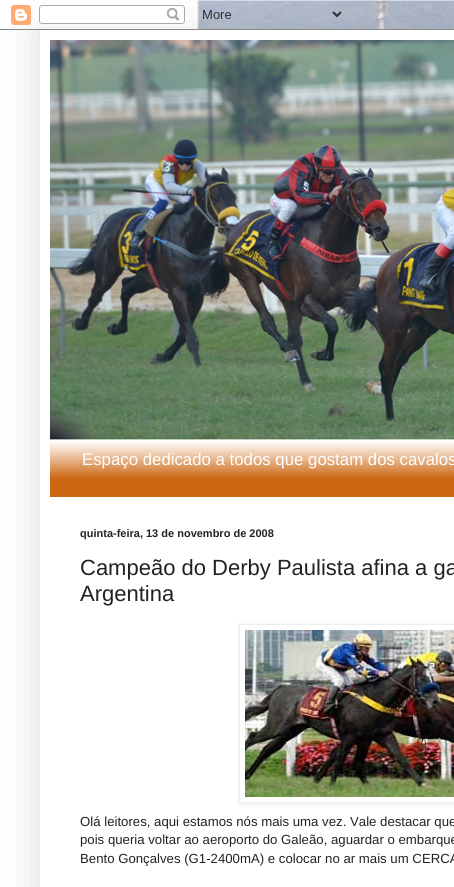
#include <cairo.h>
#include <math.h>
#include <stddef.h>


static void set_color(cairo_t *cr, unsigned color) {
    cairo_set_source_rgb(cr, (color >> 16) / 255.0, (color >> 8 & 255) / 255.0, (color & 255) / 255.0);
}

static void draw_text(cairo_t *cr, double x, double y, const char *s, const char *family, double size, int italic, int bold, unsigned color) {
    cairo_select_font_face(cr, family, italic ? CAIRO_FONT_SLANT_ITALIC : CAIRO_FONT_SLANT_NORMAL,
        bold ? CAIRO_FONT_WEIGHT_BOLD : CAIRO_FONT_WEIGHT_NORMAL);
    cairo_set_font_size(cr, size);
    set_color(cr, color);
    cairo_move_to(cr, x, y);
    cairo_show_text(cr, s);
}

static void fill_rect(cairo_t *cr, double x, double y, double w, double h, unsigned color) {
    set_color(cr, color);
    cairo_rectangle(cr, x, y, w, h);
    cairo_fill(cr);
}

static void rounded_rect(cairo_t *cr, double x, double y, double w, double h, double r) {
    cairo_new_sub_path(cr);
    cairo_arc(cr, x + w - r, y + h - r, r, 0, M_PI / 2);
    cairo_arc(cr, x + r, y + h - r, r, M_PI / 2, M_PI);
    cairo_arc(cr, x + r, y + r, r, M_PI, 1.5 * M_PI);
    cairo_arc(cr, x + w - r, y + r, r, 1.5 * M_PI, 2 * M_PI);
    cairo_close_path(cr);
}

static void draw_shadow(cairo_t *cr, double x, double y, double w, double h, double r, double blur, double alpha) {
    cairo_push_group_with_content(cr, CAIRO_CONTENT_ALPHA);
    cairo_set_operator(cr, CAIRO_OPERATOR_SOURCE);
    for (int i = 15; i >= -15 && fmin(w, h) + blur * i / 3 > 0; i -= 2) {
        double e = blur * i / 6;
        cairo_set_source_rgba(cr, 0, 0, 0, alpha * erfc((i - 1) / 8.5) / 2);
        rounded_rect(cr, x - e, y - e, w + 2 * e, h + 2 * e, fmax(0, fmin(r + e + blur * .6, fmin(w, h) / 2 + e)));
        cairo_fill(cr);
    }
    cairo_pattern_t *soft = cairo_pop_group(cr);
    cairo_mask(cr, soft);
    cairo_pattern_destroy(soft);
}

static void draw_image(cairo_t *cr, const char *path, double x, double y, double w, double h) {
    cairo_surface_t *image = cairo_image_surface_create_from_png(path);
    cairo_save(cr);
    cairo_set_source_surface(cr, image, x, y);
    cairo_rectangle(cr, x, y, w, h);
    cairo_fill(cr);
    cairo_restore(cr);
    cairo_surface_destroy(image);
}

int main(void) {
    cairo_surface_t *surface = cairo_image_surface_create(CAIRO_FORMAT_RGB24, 454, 887);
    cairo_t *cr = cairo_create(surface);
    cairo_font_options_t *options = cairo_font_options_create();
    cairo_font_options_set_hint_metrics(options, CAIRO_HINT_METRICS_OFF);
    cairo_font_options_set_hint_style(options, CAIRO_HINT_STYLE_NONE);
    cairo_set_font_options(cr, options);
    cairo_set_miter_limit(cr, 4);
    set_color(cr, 0xFFFFFF);
    cairo_paint(cr);
    draw_image(cr, "assets/img1.png", 0, 0, 454, 887);
    set_color(cr, 0x000000);
    draw_shadow(cr, 40, 30, 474, 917, 0, 20, 0.15);
    draw_image(cr, "assets/img2.png", 0, 0, 454, 30);
    fill_rect(cr, 40, 30, 414, 857, 0xFFFFFF);
    fill_rect(cr, 50, 441, 404, 56, 0xCC6611);
    draw_image(cr, "assets/img3.png", 50, 440, 404, 38);
    draw_image(cr, "assets/img4.png", 50, 40, 404, 400);
    draw_text(cr, 82, 465, "Espaço dedicado a todos que gostam dos cavalos", "Liberation Sans", 16.8, 0, 0, 0xFFFFFF);
    draw_text(cr, 80, 537, "quinta-feira, 13 de novembro de 2008", "Liberation Sans", 11, 0, 1, 0x222222);
    draw_text(cr, 80, 575, "Campeão do Derby Paulista afina a ga", "Liberation Sans", 22, 0, 0, 0x222222);
    draw_text(cr, 80, 601, "Argentina", "Liberation Sans", 22, 0, 0, 0x222222);
    cairo_save(cr);
    cairo_set_fill_rule(cr, CAIRO_FILL_RULE_EVEN_ODD);
    cairo_new_path(cr);
    cairo_move_to(cr, 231, 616);
    cairo_line_to(cr, 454, 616);
    cairo_line_to(cr, 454, 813);
    cairo_line_to(cr, 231, 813);
    cairo_close_path(cr);
    cairo_move_to(cr, 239, 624);
    cairo_line_to(cr, 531, 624);
    cairo_line_to(cr, 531, 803);
    cairo_line_to(cr, 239, 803);
    cairo_close_path(cr);
    cairo_clip(cr);
    set_color(cr, 0x000000);
    draw_shadow(cr, 240, 625, 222, 179, 0, 2.5, 0.1);
    cairo_restore(cr);
    cairo_rectangle(cr, 239.5, 624.5, 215, 178);
    set_color(cr, 0xEEEEEE);
    cairo_set_line_width(cr, 1);
    cairo_stroke(cr);
    draw_image(cr, "assets/img5.png", 245, 630, 209, 167);
    draw_text(cr, 80, 826, "Olá leitores, aqui estamos nós mais uma vez. Vale destacar que", "Liberation Sans", 13.2, 0, 0, 0x222222);
    draw_text(cr, 80, 844, "pois queria voltar ao aeroporto do Galeão, aguardar o embarque", "Liberation Sans", 13.2, 0, 0, 0x222222);
    draw_text(cr, 80, 863, "Bento Gonçalves (G1-2400mA) e colocar no ar mais um CERCA", "Liberation Sans", 13.2, 0, 0, 0x222222);
    cairo_surface_write_to_png(surface, "output.png");
    cairo_font_options_destroy(options);
    cairo_destroy(cr);
    cairo_surface_destroy(surface);
    return 0;
}
